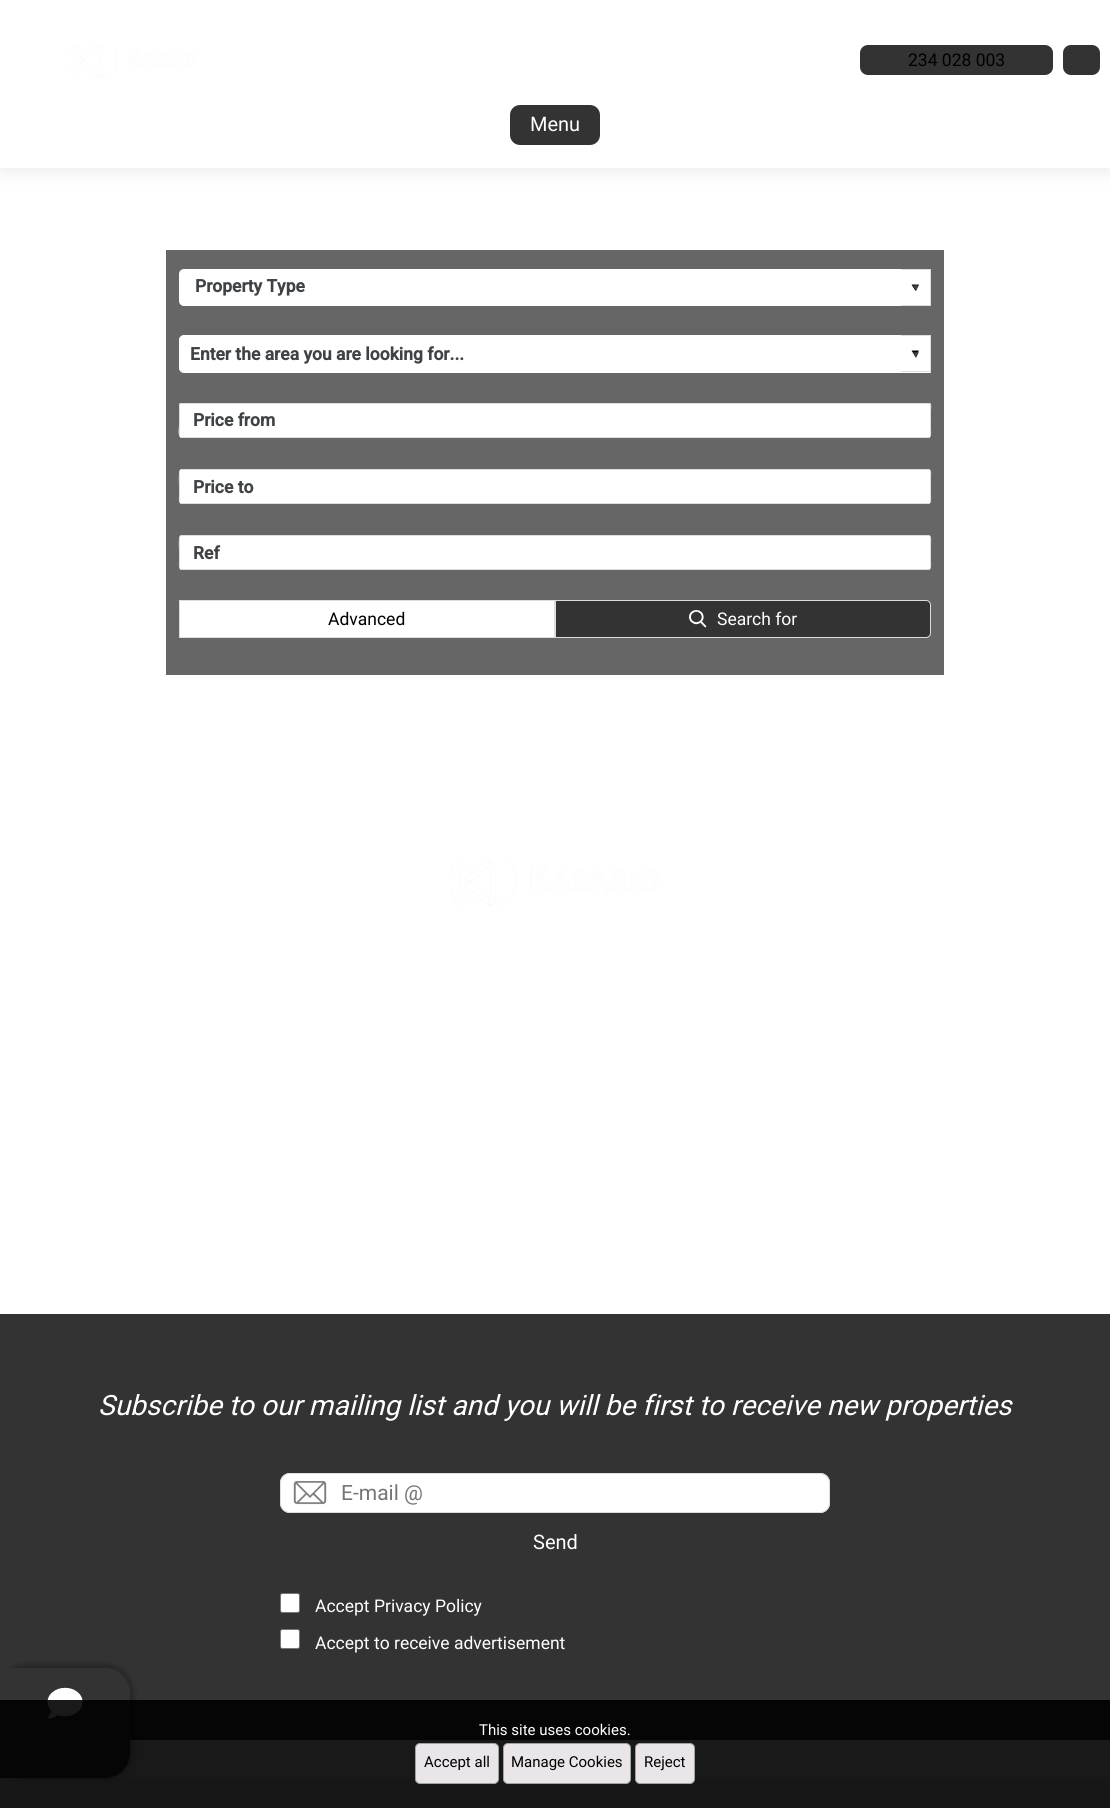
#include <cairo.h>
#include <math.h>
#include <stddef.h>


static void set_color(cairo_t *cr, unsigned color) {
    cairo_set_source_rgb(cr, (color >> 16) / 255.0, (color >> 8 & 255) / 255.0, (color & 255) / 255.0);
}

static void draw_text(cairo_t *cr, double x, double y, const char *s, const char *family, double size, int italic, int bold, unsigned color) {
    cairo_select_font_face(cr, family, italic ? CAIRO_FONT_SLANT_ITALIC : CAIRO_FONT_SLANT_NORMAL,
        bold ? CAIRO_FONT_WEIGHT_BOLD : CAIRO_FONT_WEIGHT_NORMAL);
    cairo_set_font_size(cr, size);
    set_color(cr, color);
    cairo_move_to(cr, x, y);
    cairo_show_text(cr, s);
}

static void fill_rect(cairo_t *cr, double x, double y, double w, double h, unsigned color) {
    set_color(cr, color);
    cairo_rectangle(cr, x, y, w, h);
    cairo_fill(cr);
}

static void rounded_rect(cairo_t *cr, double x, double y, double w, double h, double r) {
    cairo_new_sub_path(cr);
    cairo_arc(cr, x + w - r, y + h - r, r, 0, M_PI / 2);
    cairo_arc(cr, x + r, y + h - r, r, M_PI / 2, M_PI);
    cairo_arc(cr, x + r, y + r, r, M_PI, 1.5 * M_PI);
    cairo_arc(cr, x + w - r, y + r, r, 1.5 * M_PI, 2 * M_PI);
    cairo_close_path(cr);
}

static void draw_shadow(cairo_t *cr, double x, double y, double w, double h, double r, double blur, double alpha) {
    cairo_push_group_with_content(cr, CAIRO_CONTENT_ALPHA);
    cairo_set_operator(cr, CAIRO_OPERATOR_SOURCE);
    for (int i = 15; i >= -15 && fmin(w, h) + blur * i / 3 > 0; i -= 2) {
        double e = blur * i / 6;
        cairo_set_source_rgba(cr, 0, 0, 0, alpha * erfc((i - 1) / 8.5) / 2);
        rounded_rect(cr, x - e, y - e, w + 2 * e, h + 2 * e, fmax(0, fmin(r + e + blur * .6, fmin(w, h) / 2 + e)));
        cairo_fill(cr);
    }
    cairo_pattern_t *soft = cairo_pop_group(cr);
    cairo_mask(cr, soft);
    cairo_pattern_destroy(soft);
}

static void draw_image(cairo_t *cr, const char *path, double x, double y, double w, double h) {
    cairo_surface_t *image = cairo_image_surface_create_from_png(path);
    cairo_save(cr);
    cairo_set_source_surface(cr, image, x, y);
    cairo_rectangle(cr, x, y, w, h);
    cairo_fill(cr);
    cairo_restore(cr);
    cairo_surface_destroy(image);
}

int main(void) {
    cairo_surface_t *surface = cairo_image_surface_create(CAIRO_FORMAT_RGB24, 1110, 1808);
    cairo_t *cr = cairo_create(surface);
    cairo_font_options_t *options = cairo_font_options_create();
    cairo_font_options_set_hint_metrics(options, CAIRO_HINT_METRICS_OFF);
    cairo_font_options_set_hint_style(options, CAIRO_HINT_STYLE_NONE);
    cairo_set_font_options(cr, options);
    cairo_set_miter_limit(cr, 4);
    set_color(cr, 0xFFFFFF);
    cairo_paint(cr);
    cairo_save(cr);
    cairo_set_fill_rule(cr, CAIRO_FILL_RULE_EVEN_ODD);
    cairo_new_path(cr);
    cairo_move_to(cr, 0, 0);
    cairo_line_to(cr, 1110, 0);
    cairo_line_to(cr, 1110, 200);
    cairo_line_to(cr, 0, 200);
    cairo_close_path(cr);
    cairo_move_to(cr, 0, 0);
    cairo_line_to(cr, 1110, 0);
    cairo_line_to(cr, 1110, 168);
    cairo_line_to(cr, 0, 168);
    cairo_close_path(cr);
    cairo_clip(cr);
    set_color(cr, 0x000000);
    draw_shadow(cr, 0, 1, 1110, 168, 0, 10, 0.1);
    cairo_restore(cr);
    cairo_set_source_rgba(cr, 1, 1, 1, 0.65);
    cairo_rectangle(cr, 1, 167, 1108, 1);
    cairo_fill(cr);
    draw_image(cr, "assets/img1.png", 70, 44, 125, 37);
    set_color(cr, 0x333333);
    rounded_rect(cr, 860, 45, 193, 30, 8);
    cairo_fill(cr);
    draw_text(cr, 908, 66, "234 028 003", "Roboto", 17.5, 0, 0, 0x000000);
    set_color(cr, 0x333333);
    rounded_rect(cr, 1063, 45, 37, 30, 8);
    cairo_fill(cr);
    rounded_rect(cr, 510, 105, 90, 40, 10);
    cairo_fill(cr);
    draw_text(cr, 530, 131, "Menu", "Roboto", 20, 0, 0, 0xFFFFFF);
    fill_rect(cr, 166, 250, 778, 425, 0x666666);
    set_color(cr, 0xFFFFFF);
    rounded_rect(cr, 179, 269, 752, 37, 5);
    cairo_fill(cr);
    draw_text(cr, 195, 292, "Property Type", "Roboto", 17.5, 0, 1, 0x404345);
    fill_rect(cr, 929, 270, 1, 35, 0xFFFFFF);
    set_color(cr, 0x000000);
    cairo_new_path(cr);
    cairo_move_to(cr, 915.5, 291);
    cairo_line_to(cr, 911.5, 284.5);
    cairo_line_to(cr, 919, 284.5);
    cairo_close_path(cr);
    cairo_fill(cr);
    fill_rect(cr, 901, 269, 30, 1, 0xDDDDDD);
    fill_rect(cr, 930, 269, 1, 37, 0xDDDDDD);
    fill_rect(cr, 901, 305, 30, 1, 0xDDDDDD);
    draw_text(cr, 911, 291, "▼", "Liberation Sans", 10, 0, 1, 0x404345);
    set_color(cr, 0xFFFFFF);
    rounded_rect(cr, 179.5, 335.5, 751, 37, 4.5);
    cairo_fill_preserve(cr);
    cairo_set_line_width(cr, 1);
    cairo_stroke(cr);
    draw_text(cr, 190, 360, "Enter the area you are looking for...", "Roboto", 17.5, 0, 1, 0x404345);
    fill_rect(cr, 927, 336, 3, 37, 0xFFFFFF);
    set_color(cr, 0x000000);
    cairo_new_path(cr);
    cairo_move_to(cr, 915.5, 357);
    cairo_line_to(cr, 911.5, 350.5);
    cairo_line_to(cr, 919, 350.5);
    cairo_close_path(cr);
    cairo_fill(cr);
    fill_rect(cr, 901, 335, 30, 1, 0xDDDDDD);
    fill_rect(cr, 930, 335, 1, 38, 0xDDDDDD);
    fill_rect(cr, 901, 371, 30, 1, 0xDDDDDD);
    draw_text(cr, 911, 358, "▼", "Liberation Sans", 10, 0, 1, 0x404345);
    cairo_save(cr);
    rounded_rect(cr, 179, 401, 752, 38, 5);
    cairo_clip(cr);
    fill_rect(cr, 179, 403, 752, 35, 0xFFFFFF);
    cairo_restore(cr);
    set_color(cr, 0xDDDDDD);
    cairo_set_fill_rule(cr, CAIRO_FILL_RULE_EVEN_ODD);
    cairo_new_path(cr);
    cairo_move_to(cr, 179, 406);
    cairo_line_to(cr, 179, 425);
    cairo_curve_to(cr, 179, 428, 177, 435, 181, 438);
    cairo_line_to(cr, 929, 438);
    cairo_curve_to(cr, 932, 436, 931, 432, 931, 429);
    cairo_line_to(cr, 931, 411);
    cairo_curve_to(cr, 931, 408, 932, 405, 930, 403);
    cairo_line_to(cr, 180, 403);
    cairo_close_path(cr);
    cairo_move_to(cr, 180, 404);
    cairo_line_to(cr, 180, 437);
    cairo_line_to(cr, 930, 437);
    cairo_line_to(cr, 930, 404);
    cairo_close_path(cr);
    cairo_fill(cr);
    draw_text(cr, 193, 426, "Price from", "Roboto", 17.5, 0, 1, 0x404345);
    cairo_save(cr);
    cairo_set_fill_rule(cr, CAIRO_FILL_RULE_WINDING);
    rounded_rect(cr, 179, 468, 752, 37, 5);
    cairo_clip(cr);
    fill_rect(cr, 179, 469, 752, 35, 0xFFFFFF);
    cairo_restore(cr);
    set_color(cr, 0xDDDDDD);
    cairo_new_path(cr);
    cairo_move_to(cr, 180, 470);
    cairo_curve_to(cr, 178, 473, 179, 483, 179, 486);
    cairo_line_to(cr, 179, 496);
    cairo_curve_to(cr, 179, 498, 178, 502, 181, 504);
    cairo_line_to(cr, 929, 504);
    cairo_curve_to(cr, 932, 502, 931, 498, 931, 496);
    cairo_line_to(cr, 931, 478);
    cairo_curve_to(cr, 931, 475, 932, 471, 929, 469);
    cairo_line_to(cr, 181, 469);
    cairo_close_path(cr);
    cairo_move_to(cr, 180, 470);
    cairo_line_to(cr, 930, 470);
    cairo_line_to(cr, 930, 503);
    cairo_line_to(cr, 180, 503);
    cairo_close_path(cr);
    cairo_fill(cr);
    draw_text(cr, 193, 493, "Price to", "Roboto", 17.5, 0, 1, 0x404345);
    cairo_save(cr);
    cairo_set_fill_rule(cr, CAIRO_FILL_RULE_WINDING);
    rounded_rect(cr, 179, 534, 752, 37, 5);
    cairo_clip(cr);
    fill_rect(cr, 179, 535, 752, 35, 0xFFFFFF);
    cairo_restore(cr);
    set_color(cr, 0xDDDDDD);
    cairo_new_path(cr);
    cairo_move_to(cr, 180, 536);
    cairo_curve_to(cr, 178, 539, 179, 549, 179, 552);
    cairo_line_to(cr, 179, 562);
    cairo_curve_to(cr, 179, 564, 178, 568, 181, 570);
    cairo_line_to(cr, 929, 570);
    cairo_curve_to(cr, 932, 568, 931, 564, 931, 562);
    cairo_line_to(cr, 931, 544);
    cairo_curve_to(cr, 931, 541, 932, 537, 929, 535);
    cairo_line_to(cr, 181, 535);
    cairo_close_path(cr);
    cairo_move_to(cr, 180, 536);
    cairo_line_to(cr, 180, 569);
    cairo_line_to(cr, 930, 569);
    cairo_line_to(cr, 930, 536);
    cairo_close_path(cr);
    cairo_fill(cr);
    draw_text(cr, 193, 559, "Ref", "Roboto", 17.5, 0, 1, 0x404345);
    set_color(cr, 0xFFFFFF);
    cairo_rectangle(cr, 179.5, 600.5, 375, 37);
    cairo_fill_preserve(cr);
    set_color(cr, 0xDDDDDD);
    cairo_stroke(cr);
    draw_text(cr, 328, 625, "Advanced", "Roboto", 17.5, 0, 0, 0x000000);
    set_color(cr, 0x333333);
    cairo_new_path(cr);
    cairo_move_to(cr, 555.5, 600.5);
    cairo_line_to(cr, 926, 600.5);
    cairo_curve_to(cr, 928.5, 600.5, 930.5, 602.5, 930.5, 605);
    cairo_line_to(cr, 930.5, 633);
    cairo_curve_to(cr, 930.5, 635.5, 928.5, 637.5, 926, 637.5);
    cairo_line_to(cr, 555.5, 637.5);
    cairo_close_path(cr);
    cairo_fill_preserve(cr);
    set_color(cr, 0xDDDDDD);
    cairo_stroke(cr);
    draw_image(cr, "assets/img2.png", 689, 610, 18, 18);
    draw_text(cr, 717, 625, "Search for", "Roboto", 17.5, 0, 0, 0xFFFFFF);
    draw_image(cr, "assets/img3.png", 450, 859, 209, 48);
    fill_rect(cr, 0, 1314, 1110, 426, 0x333333);
    draw_text(cr, 98, 1415, "Subscribe to our mailing list and you will be first to receive new properties", "Roboto", 28, 1, 0, 0xFFFFFF);
    rounded_rect(cr, 280, 1473, 550, 40, 10);
    cairo_fill(cr);
    draw_image(cr, "assets/img4.png", 293, 1481, 34, 24);
    rounded_rect(cr, 280.5, 1473.5, 549, 39, 9.5);
    set_color(cr, 0xDDDDDD);
    cairo_stroke(cr);
    draw_text(cr, 341, 1500, "E-mail @", "Roboto", 21, 0, 0, 0x757575);
    draw_text(cr, 533, 1549, "Send", "Roboto", 20, 0, 0, 0xFFFFFF);
    rounded_rect(cr, 280.5, 1593.5, 19, 19, 2);
    cairo_fill_preserve(cr);
    set_color(cr, 0x767676);
    cairo_stroke(cr);
    draw_text(cr, 315, 1612, "Accept Privacy Policy", "Roboto", 17.5, 0, 0, 0xFFFFFF);
    rounded_rect(cr, 280.5, 1629.5, 19, 19, 2);
    cairo_fill_preserve(cr);
    set_color(cr, 0x767676);
    cairo_stroke(cr);
    draw_text(cr, 315, 1649, "Accept to receive advertisement", "Roboto", 17.5, 0, 0, 0xFFFFFF);
    fill_rect(cr, 0, 1778, 1110, 30, 0xEBEBEB);
    set_color(cr, 0x000000);
    draw_shadow(cr, -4, 1664, 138, 117, 29, 2.5, 0.25);
    set_color(cr, 0x333333);
    cairo_new_path(cr);
    cairo_move_to(cr, 0, 1668);
    cairo_line_to(cr, 105, 1668);
    cairo_curve_to(cr, 119, 1668, 130, 1679, 130, 1693);
    cairo_line_to(cr, 130, 1753);
    cairo_curve_to(cr, 130, 1767, 119, 1778, 105, 1778);
    cairo_line_to(cr, 0, 1778);
    cairo_close_path(cr);
    cairo_fill(cr);
    draw_image(cr, "assets/img5.png", 47, 1687, 36, 32);
    cairo_set_source_rgba(cr, 0, 0, 0, 0.9);
    cairo_rectangle(cr, 0, 1700, 1110, 108);
    cairo_fill(cr);
    draw_text(cr, 479, 1735, "This site uses cookies.", "Roboto", 15, 0, 0, 0xFFFFFF);
    set_color(cr, 0xE9E5E9);
    rounded_rect(cr, 415.5, 1743.5, 83, 40, 4.5);
    cairo_fill_preserve(cr);
    set_color(cr, 0xA1A59F);
    cairo_stroke(cr);
    draw_text(cr, 424, 1767, "Accept all", "Roboto", 15, 0, 0, 0x000000);
    set_color(cr, 0xE9E5E9);
    rounded_rect(cr, 503.5, 1743.5, 127, 40, 4.5);
    cairo_fill_preserve(cr);
    set_color(cr, 0xA1A59F);
    cairo_stroke(cr);
    draw_text(cr, 511, 1767, "Manage Cookies", "Roboto", 15, 0, 0, 0x000000);
    set_color(cr, 0xE9E5E9);
    rounded_rect(cr, 635.5, 1743.5, 59, 40, 4.5);
    cairo_fill_preserve(cr);
    set_color(cr, 0xA1A59F);
    cairo_stroke(cr);
    draw_text(cr, 644, 1767, "Reject", "Roboto", 15, 0, 0, 0x000000);
    cairo_surface_write_to_png(surface, "output.png");
    cairo_font_options_destroy(options);
    cairo_destroy(cr);
    cairo_surface_destroy(surface);
    return 0;
}
